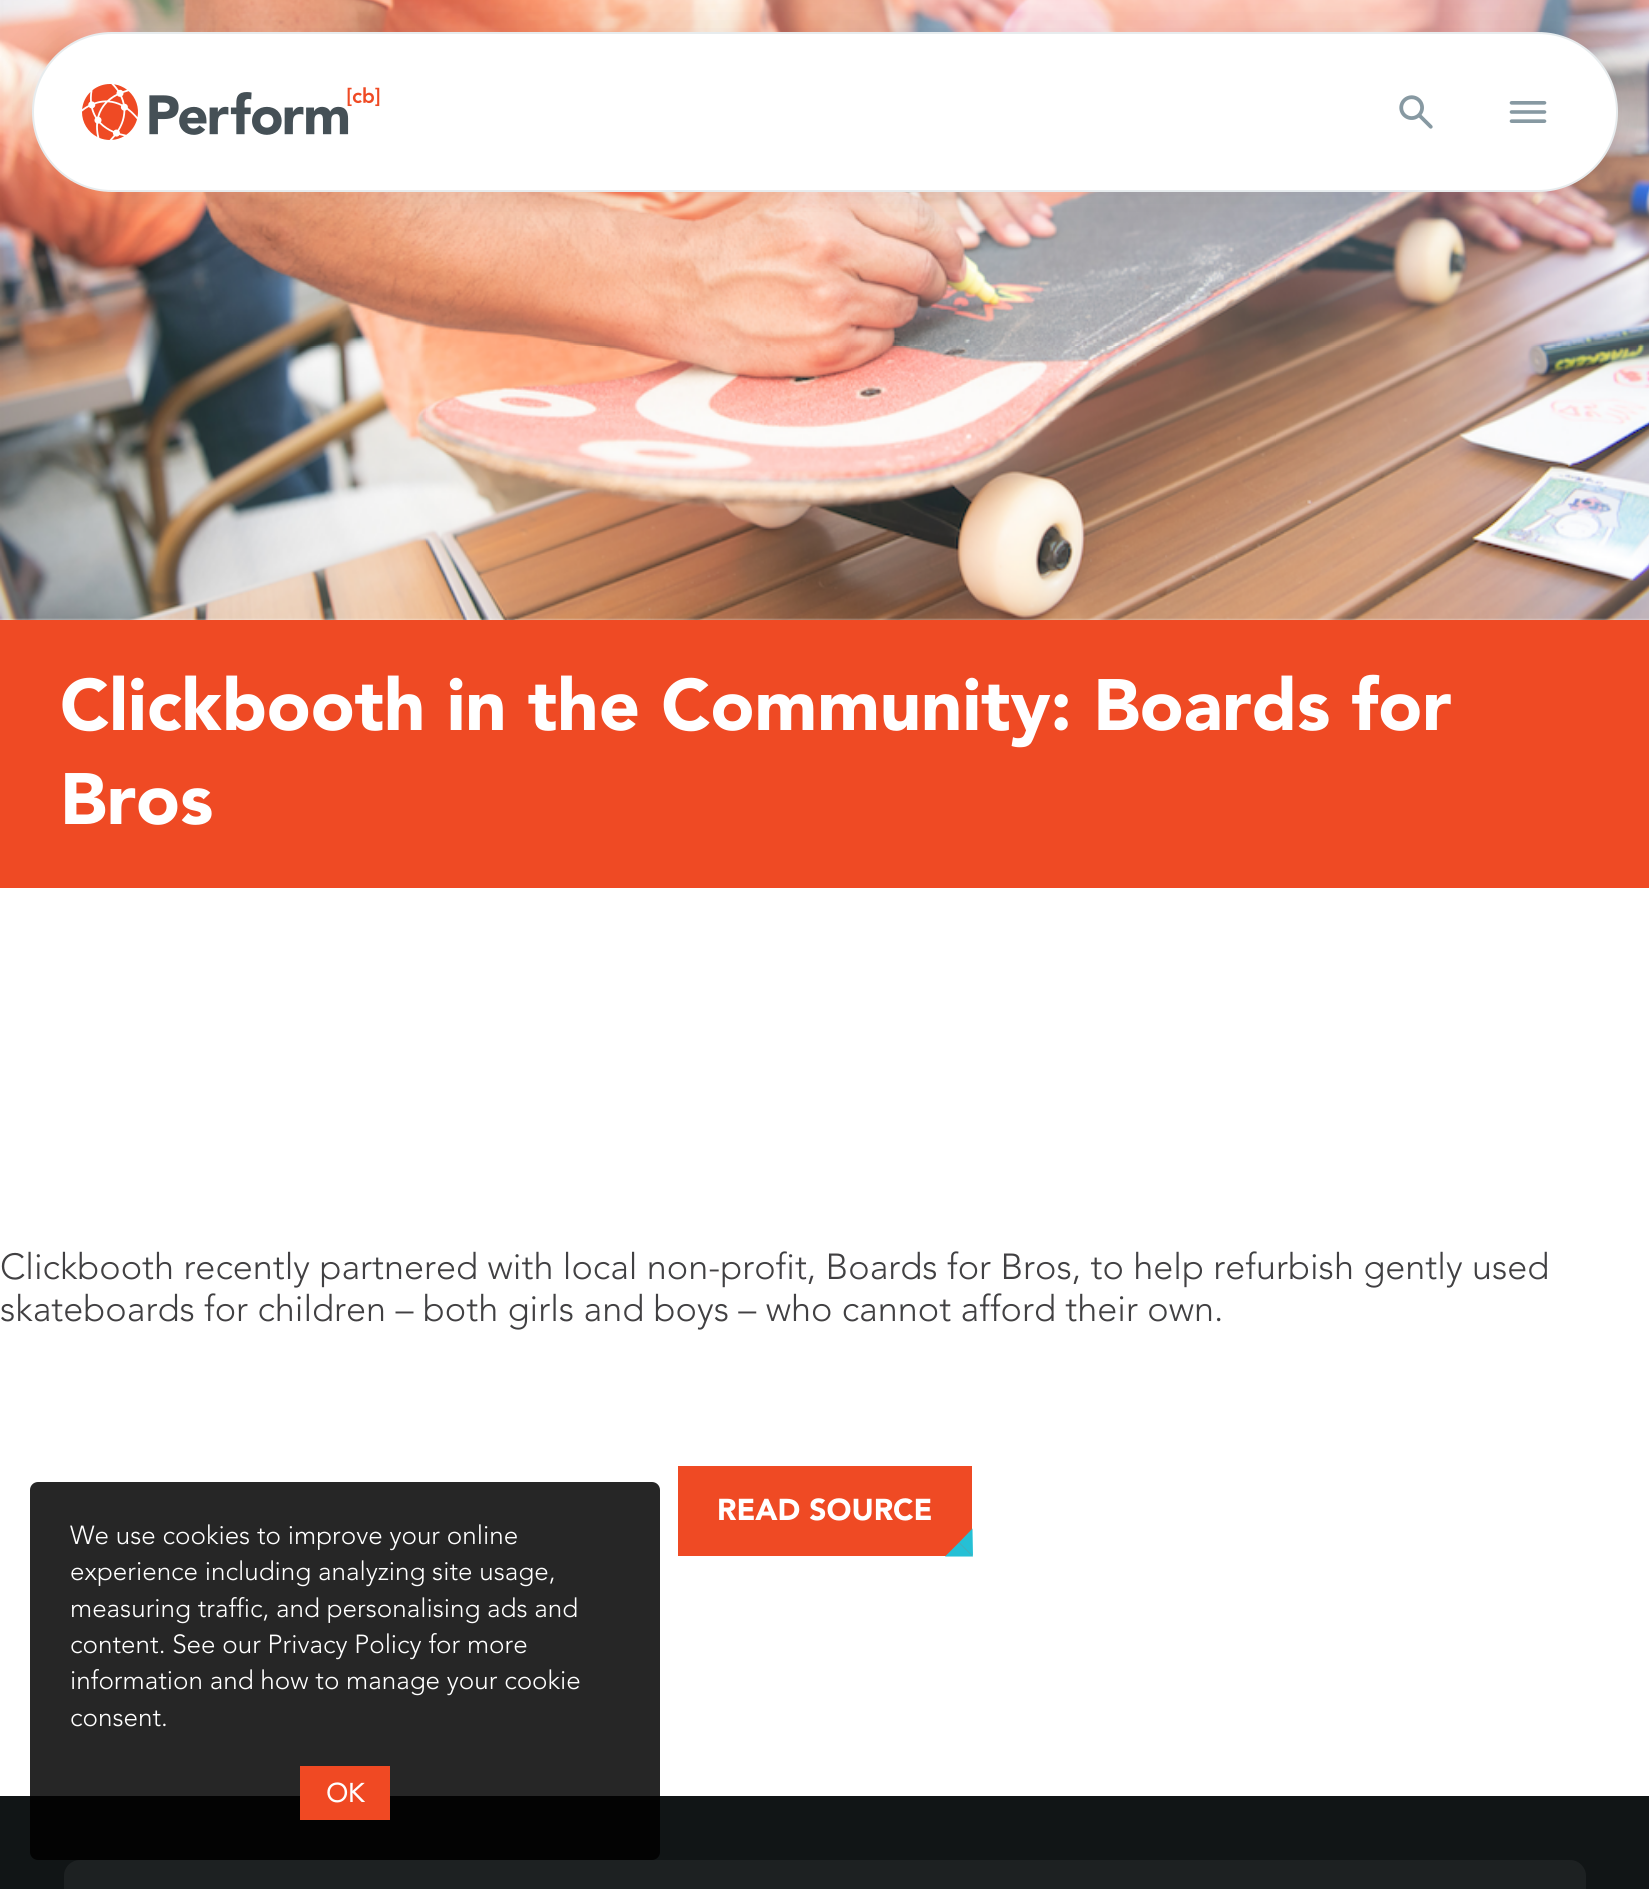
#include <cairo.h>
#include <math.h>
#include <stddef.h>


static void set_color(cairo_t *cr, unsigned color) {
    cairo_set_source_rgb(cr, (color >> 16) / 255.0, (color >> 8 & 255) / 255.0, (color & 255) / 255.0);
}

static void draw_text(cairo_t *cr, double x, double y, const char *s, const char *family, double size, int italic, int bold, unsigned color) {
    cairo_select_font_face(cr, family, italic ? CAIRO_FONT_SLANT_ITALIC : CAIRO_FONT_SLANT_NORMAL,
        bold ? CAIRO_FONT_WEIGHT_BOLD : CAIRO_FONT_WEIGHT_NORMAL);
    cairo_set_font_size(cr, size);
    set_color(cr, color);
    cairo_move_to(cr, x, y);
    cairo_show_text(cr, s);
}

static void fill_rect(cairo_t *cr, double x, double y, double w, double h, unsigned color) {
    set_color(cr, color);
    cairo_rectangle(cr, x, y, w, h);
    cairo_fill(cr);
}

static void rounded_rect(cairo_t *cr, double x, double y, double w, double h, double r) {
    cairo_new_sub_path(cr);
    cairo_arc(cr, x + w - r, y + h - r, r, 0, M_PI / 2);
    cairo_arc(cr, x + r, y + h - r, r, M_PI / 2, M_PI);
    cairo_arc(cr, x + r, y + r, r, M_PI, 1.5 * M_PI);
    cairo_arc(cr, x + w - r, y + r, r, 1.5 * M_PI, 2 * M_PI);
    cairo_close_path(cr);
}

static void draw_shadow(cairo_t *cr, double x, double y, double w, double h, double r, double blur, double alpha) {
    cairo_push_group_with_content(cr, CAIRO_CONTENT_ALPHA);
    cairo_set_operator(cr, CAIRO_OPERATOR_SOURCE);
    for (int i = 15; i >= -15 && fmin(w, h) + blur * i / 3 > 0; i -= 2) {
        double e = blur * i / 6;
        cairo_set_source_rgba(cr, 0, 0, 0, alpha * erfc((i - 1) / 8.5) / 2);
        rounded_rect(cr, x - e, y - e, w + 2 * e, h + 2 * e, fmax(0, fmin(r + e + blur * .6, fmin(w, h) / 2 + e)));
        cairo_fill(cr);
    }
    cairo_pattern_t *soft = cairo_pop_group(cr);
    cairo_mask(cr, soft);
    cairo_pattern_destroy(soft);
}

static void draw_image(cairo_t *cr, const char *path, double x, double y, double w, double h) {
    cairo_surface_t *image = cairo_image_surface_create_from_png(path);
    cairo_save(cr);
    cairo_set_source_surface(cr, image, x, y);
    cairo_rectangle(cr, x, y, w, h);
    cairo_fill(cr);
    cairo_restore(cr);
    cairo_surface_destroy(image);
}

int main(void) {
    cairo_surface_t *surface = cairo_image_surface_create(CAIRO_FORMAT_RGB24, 1649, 1889);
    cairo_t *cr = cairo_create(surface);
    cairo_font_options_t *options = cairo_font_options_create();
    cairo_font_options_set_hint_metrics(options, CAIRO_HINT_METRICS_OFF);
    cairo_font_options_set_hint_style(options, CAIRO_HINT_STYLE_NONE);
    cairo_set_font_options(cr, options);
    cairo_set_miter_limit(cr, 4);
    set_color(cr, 0xFFFFFF);
    cairo_paint(cr);
    draw_image(cr, "assets/img4.png", 0, 0, 1649, 620);
    set_color(cr, 0x203236);
    draw_shadow(cr, 32, 32, 1586, 160, 80, 24, 0.1);
    set_color(cr, 0xFFFFFF);
    rounded_rect(cr, 33, 33, 1584, 158, 79);
    cairo_fill_preserve(cr);
    set_color(cr, 0xE7ECEE);
    cairo_stroke(cr);
    draw_image(cr, "assets/img1.png", 82, 84, 298, 56);
    draw_image(cr, "assets/img2.png", 1399, 95, 34, 34);
    draw_image(cr, "assets/img3.png", 1509, 101, 38, 22);
    fill_rect(cr, 0, 620, 1649, 268, 0xEF4A24);
    draw_text(cr, 60, 730, "Clickbooth in the Community: Boards for", "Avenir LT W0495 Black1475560 Black", 72, 0, 0, 0xFFFFFF);
    draw_text(cr, 60, 824, "Bros", "Avenir LT W0495 Black1475560 Black", 72, 0, 0, 0xFFFFFF);
    draw_text(cr, 0, 1279, "Clickbooth recently partnered with local non-profit, Boards for Bros, to help refurbish gently used", "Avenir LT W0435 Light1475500 Light", 36, 0, 0, 0x414042);
    draw_text(cr, 0, 1321, "skateboards for children – both girls and boys – who cannot afford their own.", "Avenir LT W0435 Light1475500 Light", 36, 0, 0, 0x414042);
    fill_rect(cr, 678, 1466, 294, 90, 0xEF4A24);
    draw_text(cr, 717, 1520, "READ SOURCE", "Avenir LT W0495 Black1475560 Black", 30, 0, 0, 0xFFFFFF);
    set_color(cr, 0x25C0D5);
    cairo_new_path(cr);
    cairo_move_to(cr, 972.5, 1528.5);
    cairo_line_to(cr, 973, 1556.5);
    cairo_line_to(cr, 959, 1542.5);
    cairo_close_path(cr);
    cairo_fill(cr);
    cairo_new_path(cr);
    cairo_move_to(cr, 973, 1556.5);
    cairo_line_to(cr, 945, 1556.5);
    cairo_line_to(cr, 959, 1542.5);
    cairo_close_path(cr);
    cairo_fill(cr);
    fill_rect(cr, 0, 1796, 1649, 93, 0x111516);
    cairo_set_source_rgba(cr, 0, 0, 0, 0.85);
    rounded_rect(cr, 30, 1482, 630, 378, 8);
    cairo_fill(cr);
    draw_text(cr, 70, 1544, "We use cookies to improve your online", "Avenir LT W0435 Light1475500 Light", 26, 0, 0, 0xFFFFFF);
    draw_text(cr, 70, 1580, "experience including analyzing site usage,", "Avenir LT W0435 Light1475500 Light", 26, 0, 0, 0xFFFFFF);
    draw_text(cr, 70, 1617, "measuring traffic, and personalising ads and", "Avenir LT W0435 Light1475500 Light", 26, 0, 0, 0xFFFFFF);
    draw_text(cr, 70, 1653, "content. See our Privacy Policy for more", "Avenir LT W0435 Light1475500 Light", 26, 0, 0, 0xFFFFFF);
    draw_text(cr, 70, 1689, "information and how to manage your cookie", "Avenir LT W0435 Light1475500 Light", 26, 0, 0, 0xFFFFFF);
    draw_text(cr, 70, 1726, "consent.", "Avenir LT W0435 Light1475500 Light", 26, 0, 0, 0xFFFFFF);
    fill_rect(cr, 300, 1766, 90, 54, 0xF04923);
    draw_text(cr, 326, 1802, "OK", "Avenir LT W0435 Light1475500", 26, 0, 1, 0xFFFFFF);
    set_color(cr, 0x1D2122);
    rounded_rect(cr, 64, 1860, 1522, 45, 16);
    cairo_fill(cr);
    cairo_surface_write_to_png(surface, "output.png");
    cairo_font_options_destroy(options);
    cairo_destroy(cr);
    cairo_surface_destroy(surface);
    return 0;
}
